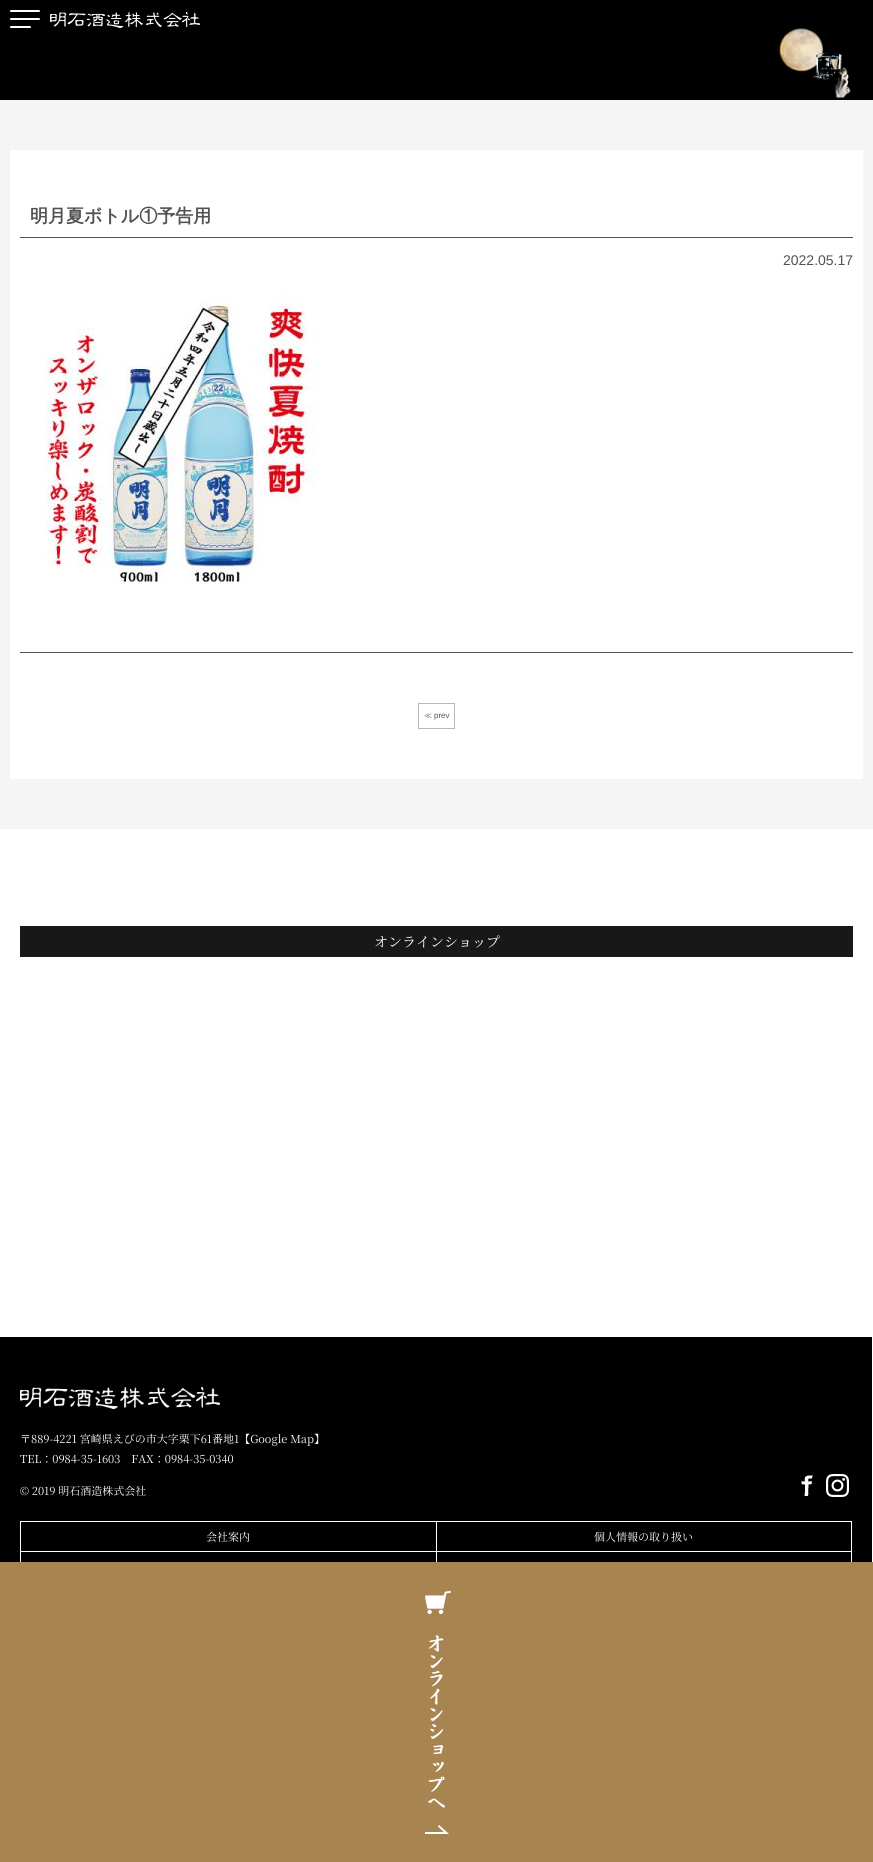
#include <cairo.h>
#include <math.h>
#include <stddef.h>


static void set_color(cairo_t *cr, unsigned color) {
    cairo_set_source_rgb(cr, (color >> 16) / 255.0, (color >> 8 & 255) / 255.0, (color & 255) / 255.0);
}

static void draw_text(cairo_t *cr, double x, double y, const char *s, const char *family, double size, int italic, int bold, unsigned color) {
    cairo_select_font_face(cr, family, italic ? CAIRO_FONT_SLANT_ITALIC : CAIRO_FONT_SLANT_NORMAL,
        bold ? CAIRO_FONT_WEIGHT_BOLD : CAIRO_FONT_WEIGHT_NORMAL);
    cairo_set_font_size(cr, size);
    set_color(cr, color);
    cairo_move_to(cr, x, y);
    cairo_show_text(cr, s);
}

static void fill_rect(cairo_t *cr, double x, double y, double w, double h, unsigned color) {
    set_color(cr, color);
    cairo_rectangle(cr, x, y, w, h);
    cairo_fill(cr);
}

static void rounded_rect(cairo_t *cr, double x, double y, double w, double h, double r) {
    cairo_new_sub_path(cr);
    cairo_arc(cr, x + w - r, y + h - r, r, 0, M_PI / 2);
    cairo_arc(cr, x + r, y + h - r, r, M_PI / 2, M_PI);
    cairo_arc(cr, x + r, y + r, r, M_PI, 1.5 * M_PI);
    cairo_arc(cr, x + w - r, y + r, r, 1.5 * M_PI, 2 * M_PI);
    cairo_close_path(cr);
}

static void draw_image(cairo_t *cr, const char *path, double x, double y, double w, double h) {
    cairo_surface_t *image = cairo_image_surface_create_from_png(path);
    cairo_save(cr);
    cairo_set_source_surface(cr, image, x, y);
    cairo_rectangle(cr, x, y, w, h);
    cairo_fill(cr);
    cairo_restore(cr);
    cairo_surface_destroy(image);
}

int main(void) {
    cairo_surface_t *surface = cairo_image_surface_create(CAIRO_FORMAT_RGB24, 873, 1862);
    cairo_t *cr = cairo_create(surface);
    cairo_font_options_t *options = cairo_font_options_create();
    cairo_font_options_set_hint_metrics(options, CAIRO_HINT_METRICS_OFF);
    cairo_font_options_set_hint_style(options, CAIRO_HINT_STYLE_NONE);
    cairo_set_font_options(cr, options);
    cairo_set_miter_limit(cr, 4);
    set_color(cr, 0xFFFFFF);
    cairo_paint(cr);
    fill_rect(cr, 0, 0, 873, 100, 0x000000);
    set_color(cr, 0xFFFFFF);
    rounded_rect(cr, 10, 10, 30, 2, 1);
    cairo_fill(cr);
    rounded_rect(cr, 10, 18, 30, 2, 1);
    cairo_fill(cr);
    rounded_rect(cr, 10, 26, 21, 2, 1);
    cairo_fill(cr);
    draw_image(cr, "assets/img1.png", 50, 11, 150, 17);
    fill_rect(cr, 0, 1562, 873, 300, 0xA88450);
    draw_image(cr, "assets/img2.png", 425, 1591, 26, 243);
    draw_image(cr, "assets/img3.png", 779, 28, 73, 70);
    fill_rect(cr, 0, 100, 873, 729, 0xF5F5F5);
    fill_rect(cr, 10, 150, 853, 629, 0xFFFFFF);
    fill_rect(cr, 20, 237, 833, 1, 0x535252);
    draw_text(cr, 30, 222, "明月夏ボトル①予告用", "WenQuanYi Zen Hei", 18, 0, 1, 0x535252);
    draw_text(cr, 783, 265, "2022.05.17", "Liberation Sans", 14, 0, 0, 0x535252);
    fill_rect(cr, 20, 652, 833, 1, 0x535252);
    draw_image(cr, "assets/img4.png", 45, 294, 274, 288);
    cairo_rectangle(cr, 418.5, 703.5, 36, 25);
    set_color(cr, 0xB8B8B8);
    cairo_set_line_width(cr, 1);
    cairo_stroke(cr);
    draw_text(cr, 424, 718, "≪", "WenQuanYi Zen Hei Medium", 8, 0, 0, 0x535252);
    draw_text(cr, 434, 718, "prev", "Liberation Sans", 8, 0, 0, 0x535252);
    fill_rect(cr, 20, 926, 833, 31, 0x181818);
    draw_text(cr, 374, 947, "オンラインショップ", "Noto Serif JP ExtraLight", 14, 0, 0, 0xFFFFFF);
    fill_rect(cr, 0, 1337, 872, 225, 0x000000);
    draw_image(cr, "assets/img5.png", 20, 1387, 200, 22);
    draw_text(cr, 20, 1443, "〒889-4221 宮崎県えびの市大字栗下61番地1【Google Map】", "Noto Serif JP ExtraLight", 11, 0, 0, 0xFFFFFF);
    draw_text(cr, 20, 1463, "TEL：0984-35-1603　FAX：0984-35-0340", "Noto Serif JP ExtraLight", 11, 0, 0, 0xFFFFFF);
    draw_text(cr, 20, 1495, "© 2019 明石酒造株式会社", "Noto Serif JP ExtraLight", 11, 0, 0, 0xFFFFFF);
    draw_image(cr, "assets/img6.png", 801, 1475, 12, 21);
    draw_image(cr, "assets/img7.png", 826, 1474, 23, 23);
    fill_rect(cr, 20, 1521, 832, 1, 0xFFFFFF);
    fill_rect(cr, 20, 1521, 1, 41, 0xFFFFFF);
    fill_rect(cr, 436, 1522, 1, 40, 0xFFFFFF);
    fill_rect(cr, 21, 1551, 416, 1, 0xFFFFFF);
    draw_text(cr, 206, 1541, "会社案内", "Noto Serif JP ExtraLight", 11, 0, 0, 0xFFFFFF);
    fill_rect(cr, 851, 1522, 1, 40, 0xFFFFFF);
    fill_rect(cr, 437, 1551, 415, 1, 0xFFFFFF);
    draw_text(cr, 594, 1541, "個人情報の取り扱い", "Noto Serif JP ExtraLight", 11, 0, 0, 0xFFFFFF);
    cairo_surface_write_to_png(surface, "output.png");
    cairo_font_options_destroy(options);
    cairo_destroy(cr);
    cairo_surface_destroy(surface);
    return 0;
}
